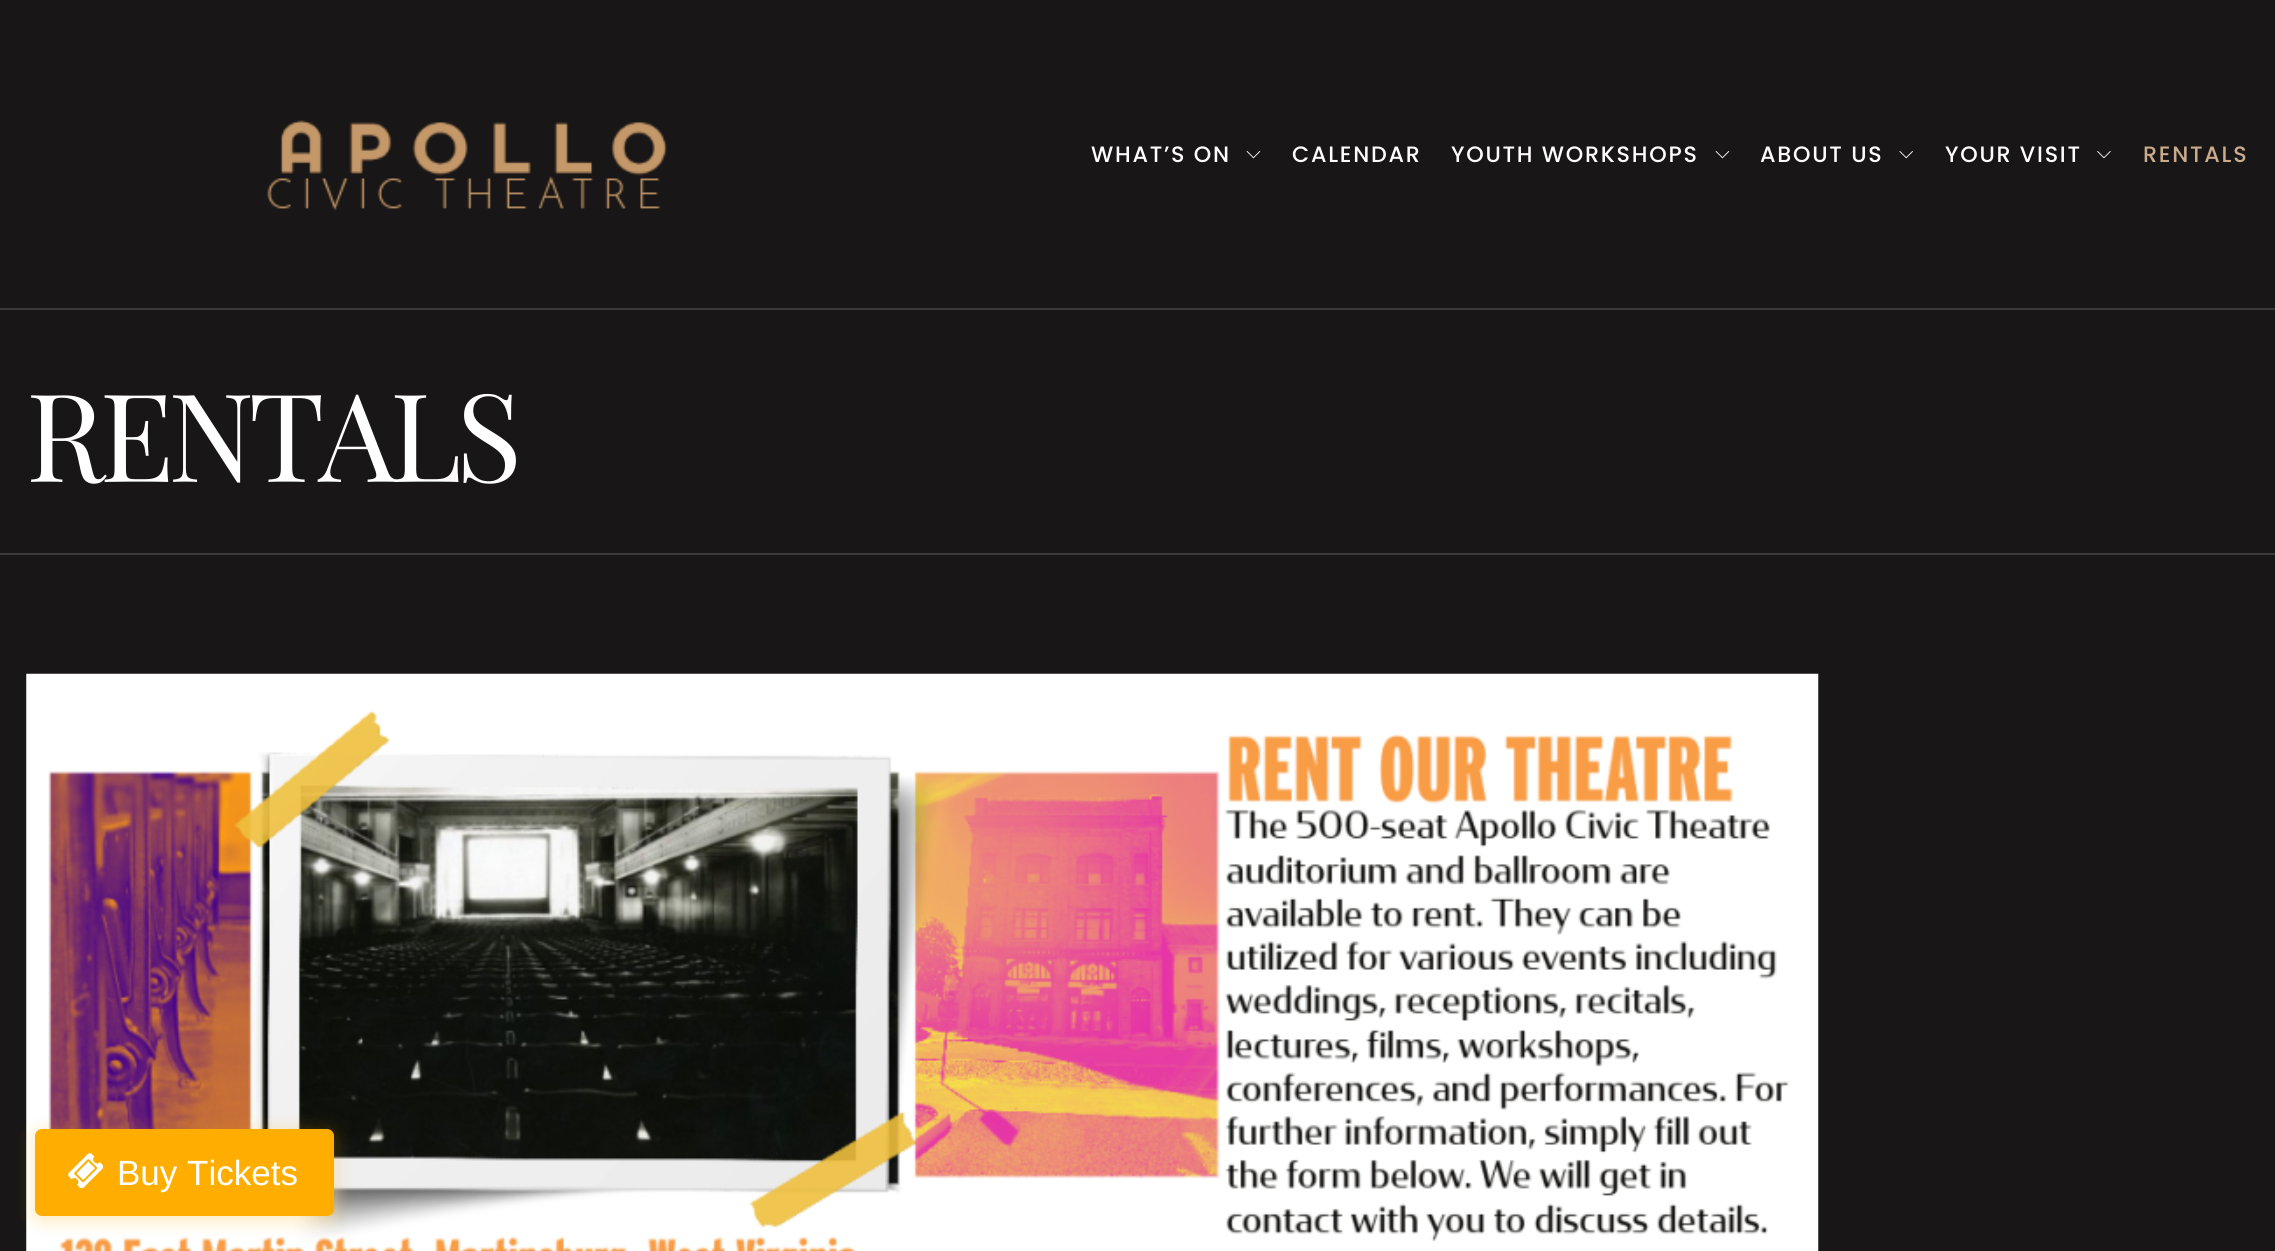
#include <cairo.h>
#include <math.h>
#include <stddef.h>


static void set_color(cairo_t *cr, unsigned color) {
    cairo_set_source_rgb(cr, (color >> 16) / 255.0, (color >> 8 & 255) / 255.0, (color & 255) / 255.0);
}

static void draw_text(cairo_t *cr, double x, double y, const char *s, const char *family, double size, int italic, int bold, unsigned color) {
    cairo_select_font_face(cr, family, italic ? CAIRO_FONT_SLANT_ITALIC : CAIRO_FONT_SLANT_NORMAL,
        bold ? CAIRO_FONT_WEIGHT_BOLD : CAIRO_FONT_WEIGHT_NORMAL);
    cairo_set_font_size(cr, size);
    set_color(cr, color);
    cairo_move_to(cr, x, y);
    cairo_show_text(cr, s);
}

static void draw_spaced(cairo_t *cr, double x, double y, const char *s, double letter, double word) {
    cairo_move_to(cr, x, y);
    while (*s) {
        char ch[5] = {0};
        int n = 0;
        do ch[n++] = *s++; while ((*s & 0xC0) == 0x80);
        cairo_show_text(cr, ch);
        cairo_rel_move_to(cr, letter + word * (*ch == ' '), 0);
    }
}

static void fill_rect(cairo_t *cr, double x, double y, double w, double h, unsigned color) {
    set_color(cr, color);
    cairo_rectangle(cr, x, y, w, h);
    cairo_fill(cr);
}

static void rounded_rect(cairo_t *cr, double x, double y, double w, double h, double r) {
    cairo_new_sub_path(cr);
    cairo_arc(cr, x + w - r, y + h - r, r, 0, M_PI / 2);
    cairo_arc(cr, x + r, y + h - r, r, M_PI / 2, M_PI);
    cairo_arc(cr, x + r, y + r, r, M_PI, 1.5 * M_PI);
    cairo_arc(cr, x + w - r, y + r, r, 1.5 * M_PI, 2 * M_PI);
    cairo_close_path(cr);
}

static void draw_shadow(cairo_t *cr, double x, double y, double w, double h, double r, double blur, double alpha) {
    cairo_push_group_with_content(cr, CAIRO_CONTENT_ALPHA);
    cairo_set_operator(cr, CAIRO_OPERATOR_SOURCE);
    for (int i = 15; i >= -15 && fmin(w, h) + blur * i / 3 > 0; i -= 2) {
        double e = blur * i / 6;
        cairo_set_source_rgba(cr, 0, 0, 0, alpha * erfc((i - 1) / 8.5) / 2);
        rounded_rect(cr, x - e, y - e, w + 2 * e, h + 2 * e, fmax(0, fmin(r + e + blur * .6, fmin(w, h) / 2 + e)));
        cairo_fill(cr);
    }
    cairo_pattern_t *soft = cairo_pop_group(cr);
    cairo_mask(cr, soft);
    cairo_pattern_destroy(soft);
}

static void draw_image(cairo_t *cr, const char *path, double x, double y, double w, double h) {
    cairo_surface_t *image = cairo_image_surface_create_from_png(path);
    cairo_save(cr);
    cairo_set_source_surface(cr, image, x, y);
    cairo_rectangle(cr, x, y, w, h);
    cairo_fill(cr);
    cairo_restore(cr);
    cairo_surface_destroy(image);
}

int main(void) {
    cairo_surface_t *surface = cairo_image_surface_create(CAIRO_FORMAT_RGB24, 2275, 1251);
    cairo_t *cr = cairo_create(surface);
    cairo_font_options_t *options = cairo_font_options_create();
    cairo_font_options_set_hint_metrics(options, CAIRO_HINT_METRICS_OFF);
    cairo_font_options_set_hint_style(options, CAIRO_HINT_STYLE_NONE);
    cairo_set_font_options(cr, options);
    cairo_set_miter_limit(cr, 4);
    set_color(cr, 0x181616);
    cairo_paint(cr);
    draw_image(cr, "assets/img1.png", 267, 120, 400, 91);
    cairo_select_font_face(cr, "Poppins Medium", CAIRO_FONT_SLANT_NORMAL, CAIRO_FONT_WEIGHT_NORMAL);
    cairo_set_font_size(cr, 22.25);
    set_color(cr, 0xFFFFFF);
    draw_spaced(cr, 1091, 162, "WHAT’S ON", 1.75, 0);
    draw_image(cr, "assets/img2.png", 1246, 151, 15, 8);
    draw_spaced(cr, 1292, 162, "CALENDAR", 1.75, 0);
    draw_spaced(cr, 1451, 162, "YOUTH WORKSHOPS", 1.75, 0);
    draw_image(cr, "assets/img2.png", 1715, 151, 15, 8);
    draw_spaced(cr, 1760, 162, "ABOUT US", 1.75, 0);
    draw_image(cr, "assets/img3.png", 1899, 151, 14, 8);
    draw_spaced(cr, 1945, 162, "YOUR VISIT", 1.75, 0);
    draw_image(cr, "assets/img4.png", 2097, 151, 14, 8);
    set_color(cr, 0xC9AC8C);
    draw_spaced(cr, 2143, 162, "RENTALS", 1.75, 0);
    fill_rect(cr, 0, 308, 2275, 2, 0x3B3939);
    cairo_select_font_face(cr, "Playfair Display", CAIRO_FONT_SLANT_NORMAL, CAIRO_FONT_WEIGHT_NORMAL);
    cairo_set_font_size(cr, 122.5);
    set_color(cr, 0xFFFFFF);
    draw_spaced(cr, 26, 482, "RENTALS", -6, 0);
    fill_rect(cr, 0, 553, 2275, 2, 0x3B3939);
    draw_image(cr, "assets/img5.png", 26, 673, 1793, 578);
    set_color(cr, 0xFFAE00);
    draw_shadow(cr, 35, 1132, 299, 88, 7, 9, 0.3);
    set_color(cr, 0xFFAE00);
    rounded_rect(cr, 36, 1130, 297, 85, 6);
    cairo_fill_preserve(cr);
    cairo_stroke(cr);
    draw_image(cr, "assets/img6.png", 68, 1153, 35, 35);
    draw_text(cr, 117, 1185, "Buy Tickets", "Liberation Sans", 35, 0, 0, 0xFFFFFF);
    cairo_surface_write_to_png(surface, "output.png");
    cairo_font_options_destroy(options);
    cairo_destroy(cr);
    cairo_surface_destroy(surface);
    return 0;
}
